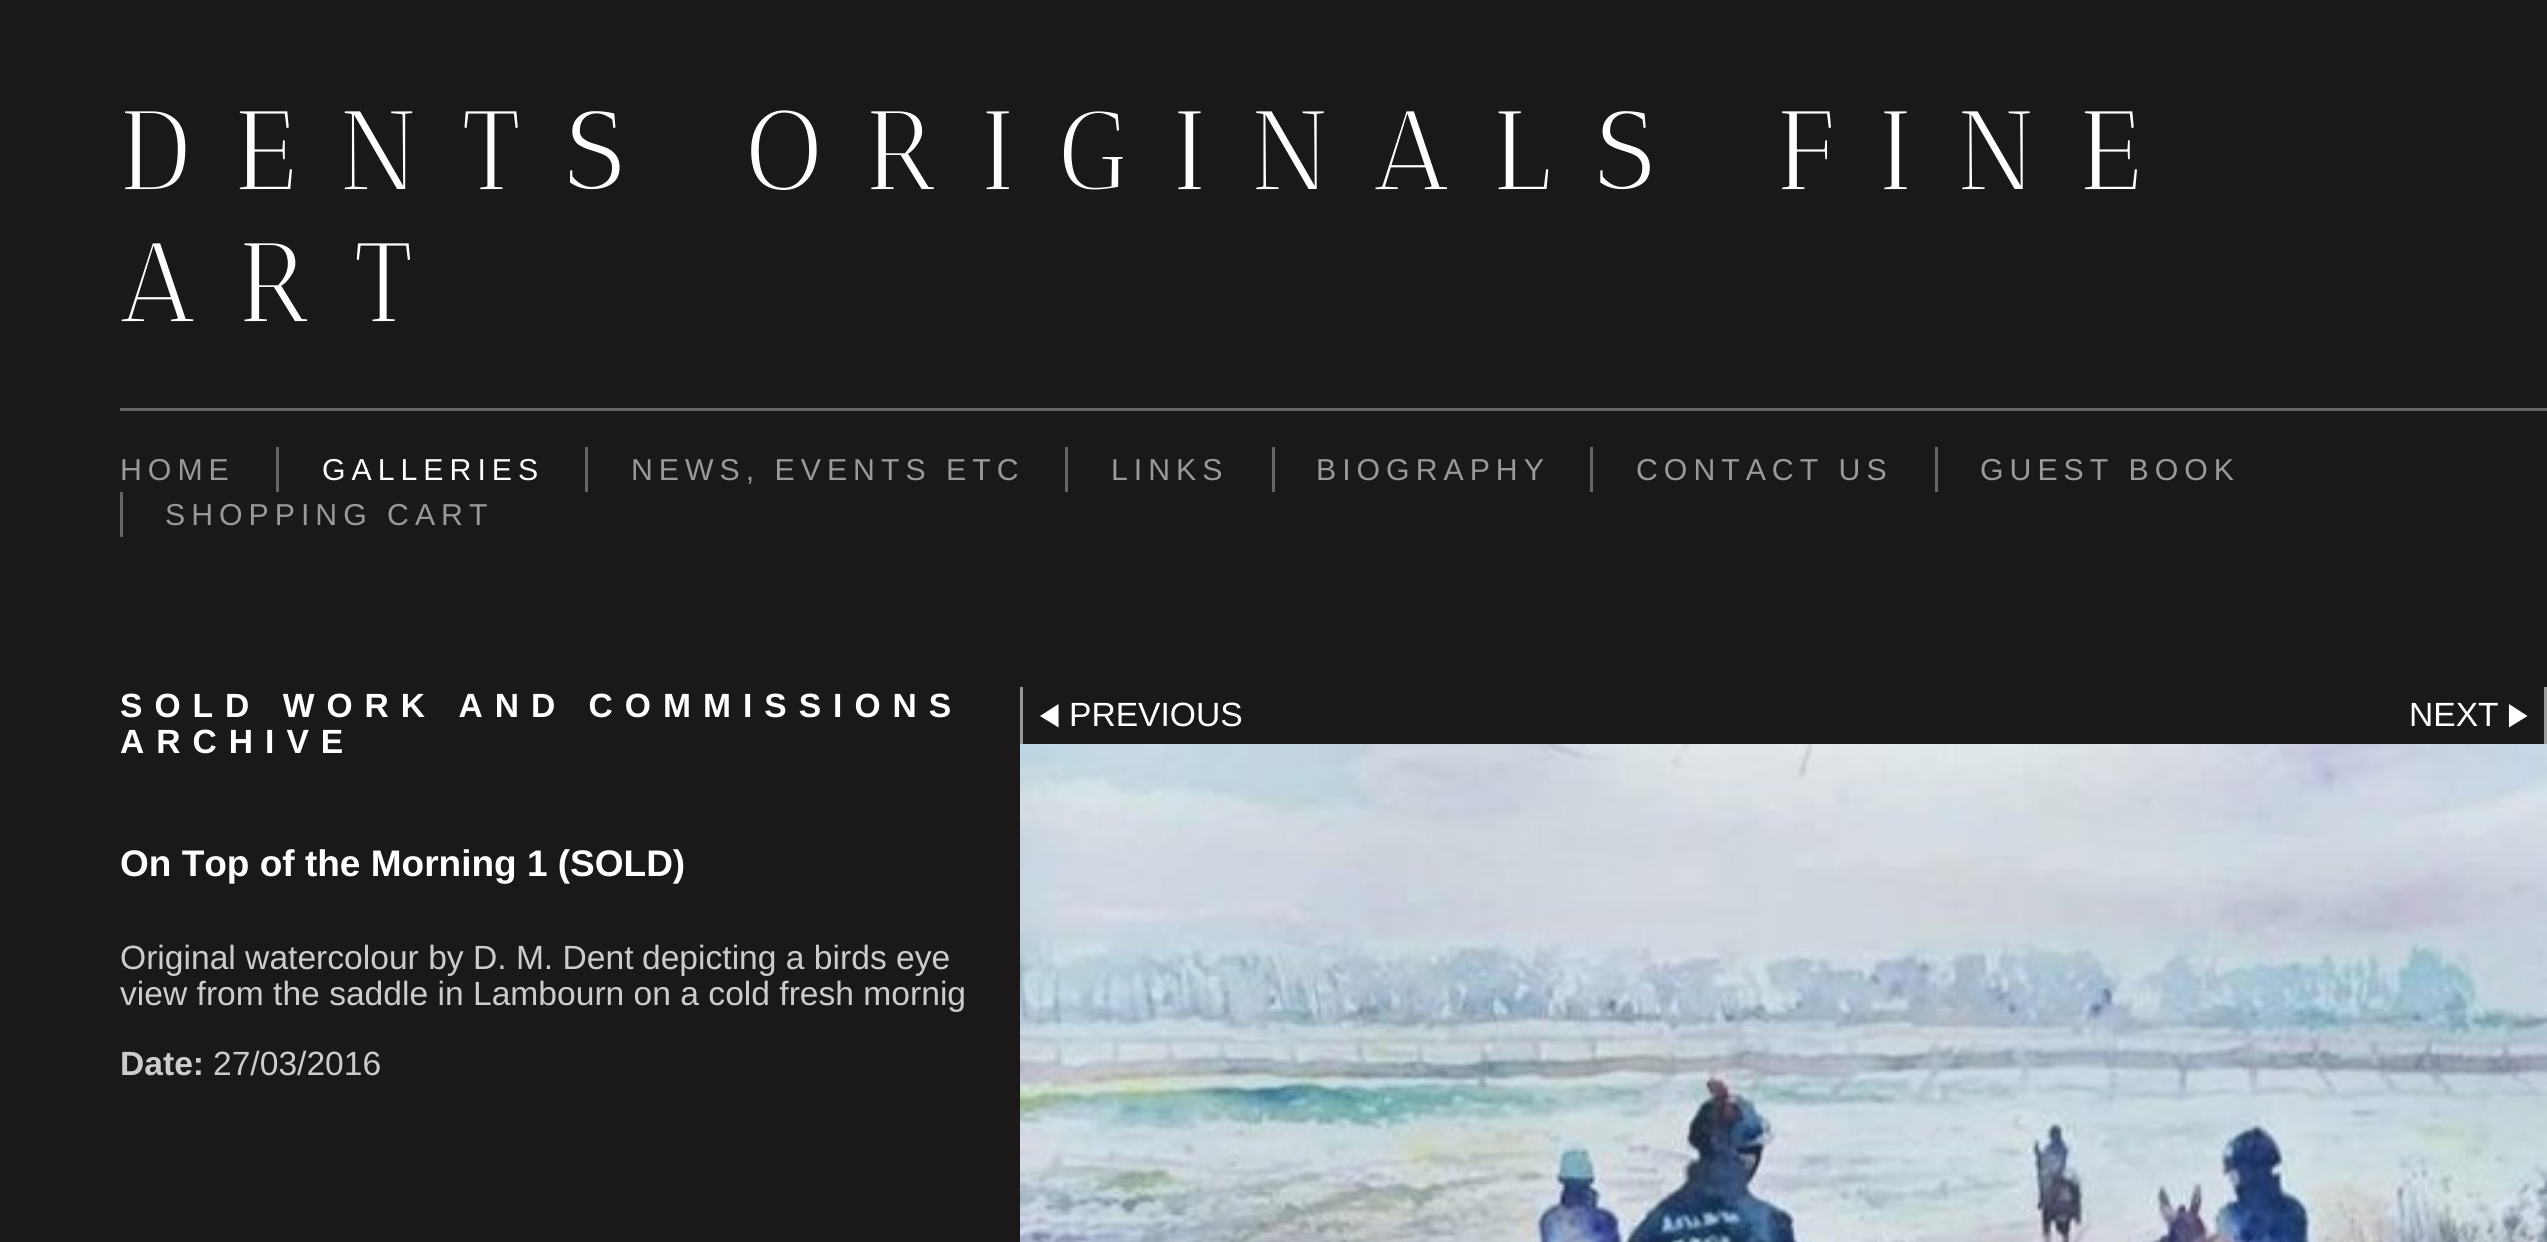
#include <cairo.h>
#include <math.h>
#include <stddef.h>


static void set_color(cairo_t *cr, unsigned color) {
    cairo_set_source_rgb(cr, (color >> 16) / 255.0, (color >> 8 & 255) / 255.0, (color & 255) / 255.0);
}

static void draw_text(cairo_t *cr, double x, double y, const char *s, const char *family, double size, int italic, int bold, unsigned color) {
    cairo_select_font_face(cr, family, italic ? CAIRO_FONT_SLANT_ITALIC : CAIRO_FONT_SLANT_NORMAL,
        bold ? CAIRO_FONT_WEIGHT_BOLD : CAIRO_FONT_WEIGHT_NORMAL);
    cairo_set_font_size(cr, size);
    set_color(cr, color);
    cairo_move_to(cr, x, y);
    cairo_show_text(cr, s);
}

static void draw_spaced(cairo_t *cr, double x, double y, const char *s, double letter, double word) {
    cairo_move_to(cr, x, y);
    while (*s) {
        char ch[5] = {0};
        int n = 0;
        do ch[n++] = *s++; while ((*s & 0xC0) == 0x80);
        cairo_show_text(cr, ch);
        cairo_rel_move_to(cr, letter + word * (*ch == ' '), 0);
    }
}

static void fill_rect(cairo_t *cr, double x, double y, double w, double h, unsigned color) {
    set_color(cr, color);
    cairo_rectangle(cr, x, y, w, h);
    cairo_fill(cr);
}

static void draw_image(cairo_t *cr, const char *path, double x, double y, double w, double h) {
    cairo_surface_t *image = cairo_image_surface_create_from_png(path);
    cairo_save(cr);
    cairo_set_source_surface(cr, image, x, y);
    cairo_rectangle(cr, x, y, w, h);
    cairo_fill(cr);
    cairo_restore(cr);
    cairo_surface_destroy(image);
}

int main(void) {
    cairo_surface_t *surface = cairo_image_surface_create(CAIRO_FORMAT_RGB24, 2547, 1242);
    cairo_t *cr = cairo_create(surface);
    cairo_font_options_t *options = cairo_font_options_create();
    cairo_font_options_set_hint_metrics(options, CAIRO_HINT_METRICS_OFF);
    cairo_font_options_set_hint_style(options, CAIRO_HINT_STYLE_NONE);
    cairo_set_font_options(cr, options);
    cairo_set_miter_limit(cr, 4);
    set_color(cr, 0x1A1818);
    cairo_paint(cr);
    fill_rect(cr, 120, 408, 2427, 3, 0x666666);
    cairo_select_font_face(cr, "Antic Didone", CAIRO_FONT_SLANT_NORMAL, CAIRO_FONT_WEIGHT_NORMAL);
    cairo_set_font_size(cr, 110.9);
    set_color(cr, 0xFFFFFF);
    draw_spaced(cr, 120, 189, "DENTS ORIGINALS FINE", 45, 0);
    draw_spaced(cr, 120, 321, "ART", 45, 0);
    cairo_select_font_face(cr, "Liberation Sans", CAIRO_FONT_SLANT_NORMAL, CAIRO_FONT_WEIGHT_NORMAL);
    cairo_set_font_size(cr, 30.25);
    set_color(cr, 0x999999);
    draw_spaced(cr, 120, 480, "HOME", 6, 0);
    fill_rect(cr, 276, 447, 3, 45, 0x666666);
    set_color(cr, 0xFFFFFF);
    draw_spaced(cr, 322, 480, "GALLERIES", 6, 0);
    fill_rect(cr, 585, 447, 3, 45, 0x666666);
    set_color(cr, 0x999999);
    draw_spaced(cr, 631, 480, "NEWS, EVENTS ETC", 6, 0);
    fill_rect(cr, 1065, 447, 3, 45, 0x666666);
    set_color(cr, 0x999999);
    draw_spaced(cr, 1111, 480, "LINKS", 6, 0);
    fill_rect(cr, 1272, 447, 3, 45, 0x666666);
    set_color(cr, 0x999999);
    draw_spaced(cr, 1316, 480, "BIOGRAPHY", 6, 0);
    fill_rect(cr, 1590, 447, 3, 45, 0x666666);
    set_color(cr, 0x999999);
    draw_spaced(cr, 1636, 480, "CONTACT US", 6, 0);
    fill_rect(cr, 1935, 447, 3, 45, 0x666666);
    set_color(cr, 0x999999);
    draw_spaced(cr, 1980, 480, "GUEST BOOK", 6, 0);
    fill_rect(cr, 120, 492, 3, 45, 0x666666);
    set_color(cr, 0x999999);
    draw_spaced(cr, 165, 525, "SHOPPING CART", 6, 0);
    cairo_select_font_face(cr, "Liberation Sans", CAIRO_FONT_SLANT_NORMAL, CAIRO_FONT_WEIGHT_BOLD);
    cairo_set_font_size(cr, 33.6);
    set_color(cr, 0xFFFFFF);
    draw_spaced(cr, 120, 717, "SOLD WORK AND COMMISSIONS", 12, 0);
    draw_spaced(cr, 120, 753, "ARCHIVE", 12, 0);
    draw_text(cr, 120, 876, "On Top of the Morning 1 (SOLD)", "Liberation Sans", 37, 0, 1, 0xFFFFFF);
    draw_text(cr, 120, 969, "Original watercolour by D. M. Dent", "Liberation Sans", 33.6, 0, 0, 0xCCCCCC);
    draw_text(cr, 642, 969, "depicting a birds eye", "Liberation Sans", 33.6, 0, 0, 0xCCCCCC);
    draw_text(cr, 120, 1005, "view from the saddle in Lambourn on a cold fresh mornig", "Liberation Sans", 33.6, 0, 0, 0xCCCCCC);
    draw_text(cr, 120, 1075, "Date:", "Liberation Sans", 33.6, 0, 1, 0xCCCCCC);
    draw_text(cr, 213, 1075, "27/03/2016", "Liberation Sans", 33.6, 0, 0, 0xCCCCCC);
    fill_rect(cr, 1020, 687, 3, 57, 0x999999);
    set_color(cr, 0xFFFFFF);
    cairo_new_path(cr);
    cairo_move_to(cr, 1058, 705);
    cairo_line_to(cr, 1058, 726.5);
    cairo_line_to(cr, 1041, 716);
    cairo_close_path(cr);
    cairo_fill_preserve(cr);
    cairo_set_line_width(cr, 1.1);
    cairo_stroke(cr);
    draw_text(cr, 1069, 726, "PREVIOUS", "Liberation Sans", 33.6, 0, 0, 0xFFFFFF);
    fill_rect(cr, 2544, 687, 3, 57, 0x999999);
    draw_text(cr, 2409, 726, "NEXT", "Liberation Sans", 33.6, 0, 0, 0xFFFFFF);
    cairo_new_path(cr);
    cairo_move_to(cr, 2509.5, 705);
    cairo_line_to(cr, 2509.5, 726.5);
    cairo_line_to(cr, 2526.5, 716);
    cairo_close_path(cr);
    cairo_fill_preserve(cr);
    cairo_stroke(cr);
    draw_image(cr, "assets/img1.png", 1020, 744, 1527, 498);
    cairo_surface_write_to_png(surface, "output.png");
    cairo_font_options_destroy(options);
    cairo_destroy(cr);
    cairo_surface_destroy(surface);
    return 0;
}
